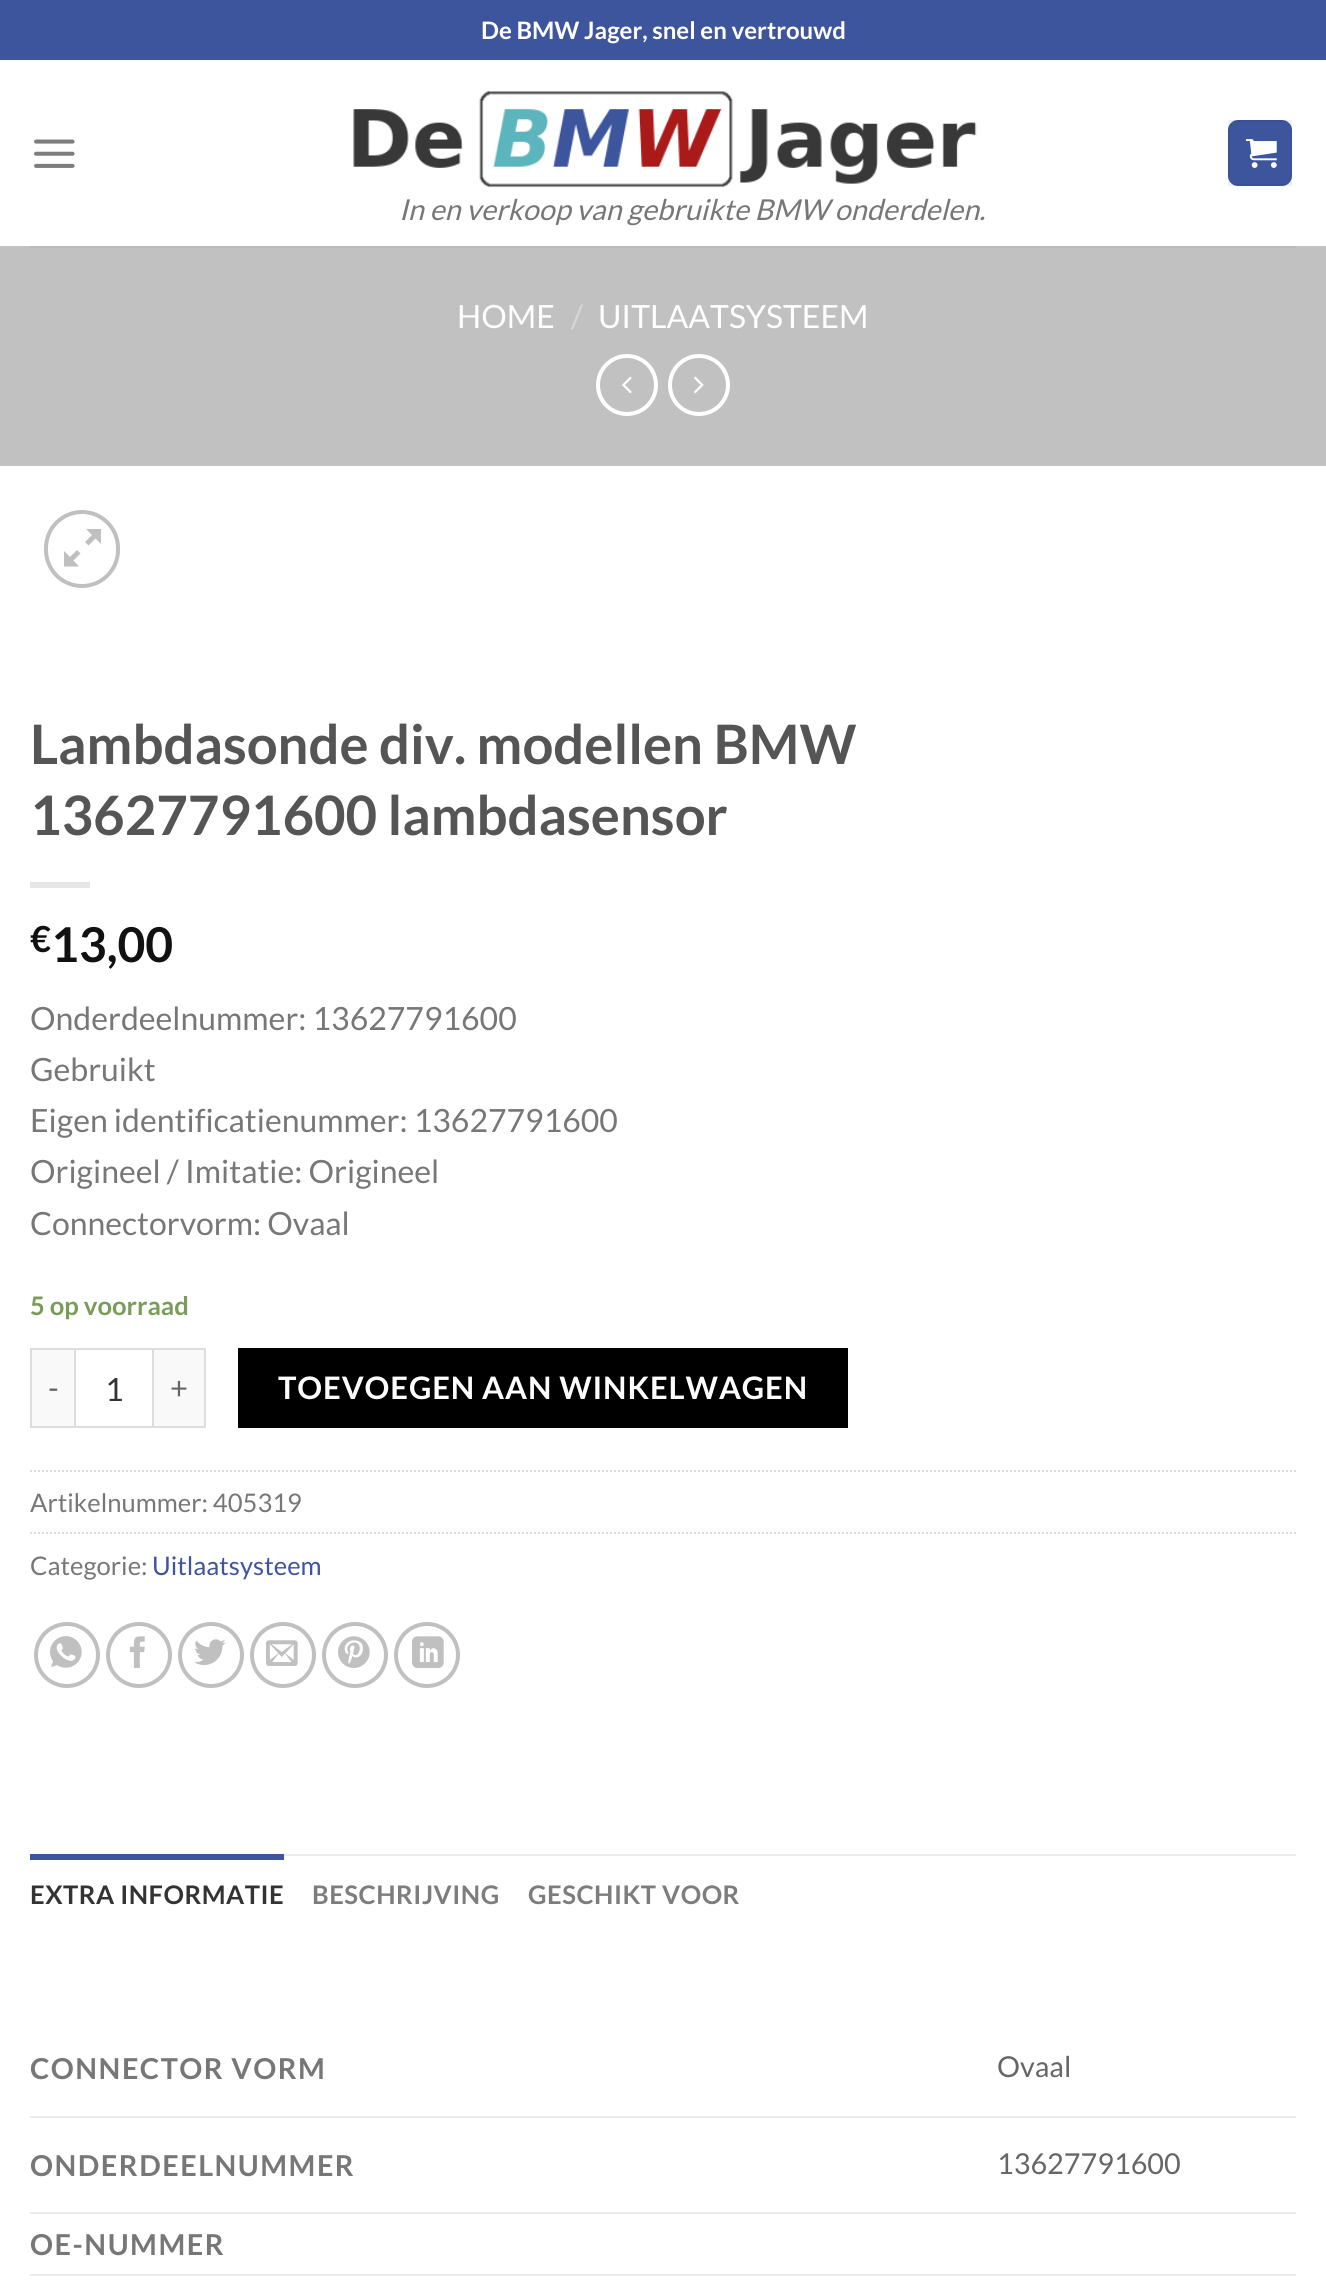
#include <cairo.h>
#include <math.h>
#include <stddef.h>


static void set_color(cairo_t *cr, unsigned color) {
    cairo_set_source_rgb(cr, (color >> 16) / 255.0, (color >> 8 & 255) / 255.0, (color & 255) / 255.0);
}

static void draw_text(cairo_t *cr, double x, double y, const char *s, const char *family, double size, int italic, int bold, unsigned color) {
    cairo_select_font_face(cr, family, italic ? CAIRO_FONT_SLANT_ITALIC : CAIRO_FONT_SLANT_NORMAL,
        bold ? CAIRO_FONT_WEIGHT_BOLD : CAIRO_FONT_WEIGHT_NORMAL);
    cairo_set_font_size(cr, size);
    set_color(cr, color);
    cairo_move_to(cr, x, y);
    cairo_show_text(cr, s);
}

static void draw_spaced(cairo_t *cr, double x, double y, const char *s, double letter, double word) {
    cairo_move_to(cr, x, y);
    while (*s) {
        char ch[5] = {0};
        int n = 0;
        do ch[n++] = *s++; while ((*s & 0xC0) == 0x80);
        cairo_show_text(cr, ch);
        cairo_rel_move_to(cr, letter + word * (*ch == ' '), 0);
    }
}

static void fill_rect(cairo_t *cr, double x, double y, double w, double h, unsigned color) {
    set_color(cr, color);
    cairo_rectangle(cr, x, y, w, h);
    cairo_fill(cr);
}

static void rounded_rect(cairo_t *cr, double x, double y, double w, double h, double r) {
    cairo_new_sub_path(cr);
    cairo_arc(cr, x + w - r, y + h - r, r, 0, M_PI / 2);
    cairo_arc(cr, x + r, y + h - r, r, M_PI / 2, M_PI);
    cairo_arc(cr, x + r, y + r, r, M_PI, 1.5 * M_PI);
    cairo_arc(cr, x + w - r, y + r, r, 1.5 * M_PI, 2 * M_PI);
    cairo_close_path(cr);
}

static void draw_image(cairo_t *cr, const char *path, double x, double y, double w, double h) {
    cairo_surface_t *image = cairo_image_surface_create_from_png(path);
    cairo_save(cr);
    cairo_set_source_surface(cr, image, x, y);
    cairo_rectangle(cr, x, y, w, h);
    cairo_fill(cr);
    cairo_restore(cr);
    cairo_surface_destroy(image);
}

int main(void) {
    cairo_surface_t *surface = cairo_image_surface_create(CAIRO_FORMAT_RGB24, 1326, 2291);
    cairo_t *cr = cairo_create(surface);
    cairo_font_options_t *options = cairo_font_options_create();
    cairo_font_options_set_hint_metrics(options, CAIRO_HINT_METRICS_OFF);
    cairo_font_options_set_hint_style(options, CAIRO_HINT_STYLE_NONE);
    cairo_set_font_options(cr, options);
    cairo_set_miter_limit(cr, 4);
    set_color(cr, 0xFFFFFF);
    cairo_paint(cr);
    fill_rect(cr, 0, 0, 1326, 60, 0x3D559D);
    draw_text(cr, 481, 39, "De BMW Jager, snel en vertrouwd", "Lato", 24, 0, 1, 0xFFFFFF);
    draw_image(cr, "assets/img1.png", 34, 139, 41, 29);
    set_color(cr, 0x3D559D);
    rounded_rect(cr, 1228, 120, 64, 66, 10);
    cairo_fill(cr);
    cairo_rectangle(cr, 1229, 121, 62, 64);
    cairo_set_source_rgba(cr, 0, 0, 0, 0.05);
    cairo_stroke(cr);
    draw_image(cr, "assets/img2.png", 1246, 139, 31, 29);
    draw_image(cr, "assets/img3.png", 353, 91, 624, 97);
    draw_text(cr, 399, 220, "In en verkoop van gebruikte BMW onderdelen.", "Lato", 28.8, 1, 0, 0x777777);
    fill_rect(cr, 0, 246, 1326, 220, 0xC1C1C1);
    fill_rect(cr, 30, 246, 1266, 2, 0xBABABA);
    draw_text(cr, 457, 328, "HOME", "Lato", 32, 0, 0, 0xFFFFFF);
    draw_text(cr, 571, 328, "/", "Lato", 32, 0, 0, 0xD7D7D7);
    draw_text(cr, 598, 328, "UITLAATSYSTEEM", "Lato", 32, 0, 0, 0xFFFFFF);
    cairo_new_path(cr);
    cairo_arc(cr, 627, 385, 29, 0, 2 * M_PI);
    cairo_set_line_width(cr, 4);
    cairo_stroke(cr);
    draw_image(cr, "assets/img4.png", 622, 376, 10, 18);
    cairo_arc(cr, 699, 385, 29, 0, 2 * M_PI);
    cairo_stroke(cr);
    draw_image(cr, "assets/img5.png", 694, 376, 10, 18);
    rounded_rect(cr, 46, 512, 72, 74, 36);
    set_color(cr, 0xC0C0C0);
    cairo_stroke(cr);
    cairo_new_path(cr);
    cairo_move_to(cr, 101, 529);
    cairo_line_to(cr, 101, 544);
    cairo_line_to(cr, 95.5, 538.5);
    cairo_line_to(cr, 88.5, 545.5);
    cairo_line_to(cr, 85, 542);
    cairo_line_to(cr, 92, 535);
    cairo_line_to(cr, 86, 529);
    cairo_close_path(cr);
    cairo_move_to(cr, 80.5, 553.5);
    cairo_line_to(cr, 73.5, 560.5);
    cairo_line_to(cr, 79, 566.5);
    cairo_line_to(cr, 64, 566.5);
    cairo_line_to(cr, 64, 551);
    cairo_line_to(cr, 70, 557);
    cairo_line_to(cr, 77, 550);
    cairo_close_path(cr);
    cairo_fill(cr);
    draw_text(cr, 30, 764, "Lambdasonde div. modellen BMW", "Lato", 54.4, 0, 1, 0x555555);
    draw_text(cr, 30, 835, "13627791600 lambdasensor", "Lato", 54.4, 0, 1, 0x555555);
    fill_rect(cr, 30, 882, 60, 6, 0xE6E6E6);
    draw_text(cr, 30, 952, "€", "Lato", 36, 0, 1, 0x111111);
    draw_text(cr, 51, 962, "13,00", "Lato", 48, 0, 1, 0x111111);
    draw_text(cr, 30, 1030, "Onderdeelnummer: 13627791600", "Lato", 32, 0, 0, 0x777777);
    draw_text(cr, 30, 1081, "Gebruikt", "Lato", 32, 0, 0, 0x777777);
    draw_text(cr, 30, 1132, "Eigen identificatienummer: 13627791600", "Lato", 32, 0, 0, 0x777777);
    draw_text(cr, 30, 1183, "Origineel / Imitatie: Origineel", "Lato", 32, 0, 0, 0x777777);
    draw_text(cr, 30, 1235, "Connectorvorm: Ovaal", "Lato", 32, 0, 0, 0x777777);
    draw_text(cr, 30, 1315, "5 op voorraad", "Lato", 25.6, 0, 1, 0x7A9C59);
    fill_rect(cr, 32, 1350, 42, 76, 0xF9F9F9);
    fill_rect(cr, 30, 1348, 44, 2, 0xDDDDDD);
    fill_rect(cr, 30, 1426, 44, 2, 0xDDDDDD);
    fill_rect(cr, 30, 1348, 2, 80, 0xDDDDDD);
    cairo_select_font_face(cr, "Lato", CAIRO_FONT_SLANT_NORMAL, CAIRO_FONT_WEIGHT_NORMAL);
    cairo_set_font_size(cr, 31);
    set_color(cr, 0x666666);
    draw_spaced(cr, 48, 1399, "-", 0.9, 0);
    cairo_rectangle(cr, 75, 1349, 78, 78);
    set_color(cr, 0xDDDDDD);
    cairo_set_line_width(cr, 2);
    cairo_stroke(cr);
    draw_text(cr, 105, 1401, "1", "Lato", 32, 0, 0, 0x333333);
    fill_rect(cr, 154, 1350, 50, 76, 0xF9F9F9);
    fill_rect(cr, 154, 1348, 52, 2, 0xDDDDDD);
    fill_rect(cr, 204, 1348, 2, 80, 0xDDDDDD);
    fill_rect(cr, 154, 1426, 52, 2, 0xDDDDDD);
    cairo_set_font_size(cr, 31);
    set_color(cr, 0x666666);
    draw_spaced(cr, 170, 1399, "+", 0.9, 0);
    fill_rect(cr, 238, 1348, 610, 80, 0x000000);
    cairo_select_font_face(cr, "Lato", CAIRO_FONT_SLANT_NORMAL, CAIRO_FONT_WEIGHT_BOLD);
    set_color(cr, 0xFFFFFF);
    draw_spaced(cr, 278, 1399, "TOEVOEGEN AAN WINKELWAGEN", 0.9, 0);
    cairo_new_path(cr);
    cairo_move_to(cr, 30, 1471);
    cairo_line_to(cr, 1296, 1471);
    set_color(cr, 0xDDDDDD);
    cairo_set_dash(cr, (double[]){2, 2}, 2, 0);
    cairo_stroke(cr);
    draw_text(cr, 30, 1512, "Artikelnummer: 405319", "Lato", 25.6, 0, 0, 0x777777);
    cairo_new_path(cr);
    cairo_move_to(cr, 30, 1533);
    cairo_line_to(cr, 1296, 1533);
    set_color(cr, 0xDDDDDD);
    cairo_stroke(cr);
    draw_text(cr, 30, 1575, "Categorie:", "Lato", 25.6, 0, 0, 0x777777);
    draw_text(cr, 152, 1575, "Uitlaatsysteem", "Lato", 25.6, 0, 0, 0x3D559D);
    cairo_new_path(cr);
    cairo_arc(cr, 67, 1655, 31, 0, 2 * M_PI);
    set_color(cr, 0xC0C0C0);
    cairo_set_line_width(cr, 4);
    cairo_set_dash(cr, NULL, 0, 0);
    cairo_stroke(cr);
    draw_image(cr, "assets/img6.png", 50, 1636, 32, 32);
    cairo_arc(cr, 139, 1655, 31, 0, 2 * M_PI);
    cairo_stroke(cr);
    draw_image(cr, "assets/img7.png", 129, 1636, 16, 32);
    cairo_arc(cr, 211, 1655, 31, 0, 2 * M_PI);
    cairo_stroke(cr);
    draw_image(cr, "assets/img8.png", 194, 1639, 32, 26);
    cairo_arc(cr, 283, 1655, 31, 0, 2 * M_PI);
    cairo_stroke(cr);
    draw_image(cr, "assets/img9.png", 266, 1640, 32, 26);
    cairo_arc(cr, 355, 1655, 31, 0, 2 * M_PI);
    cairo_stroke(cr);
    draw_image(cr, "assets/img10.png", 338, 1636, 32, 32);
    cairo_arc(cr, 427, 1655, 31, 0, 2 * M_PI);
    cairo_stroke(cr);
    draw_image(cr, "assets/img11.png", 412, 1636, 32, 32);
    fill_rect(cr, 284, 1854, 1012, 2, 0xECECEC);
    fill_rect(cr, 30, 1854, 254, 6, 0x3D559D);
    cairo_select_font_face(cr, "Lato", CAIRO_FONT_SLANT_NORMAL, CAIRO_FONT_WEIGHT_BOLD);
    set_color(cr, 0x333333);
    draw_spaced(cr, 30, 1904, "EXTRA INFORMATIE", 0.5, 0);
    set_color(cr, 0x7D7D7D);
    draw_spaced(cr, 312, 1904, "BESCHRIJVING", 0.5, 0);
    draw_spaced(cr, 528, 1904, "GESCHIKT VOOR", 0.5, 0);
    fill_rect(cr, 30, 2116, 1266, 2, 0xECECEC);
    cairo_set_font_size(cr, 28.8);
    set_color(cr, 0x777777);
    draw_spaced(cr, 30, 2079, "CONNECTOR VORM", 1.5, 0);
    draw_text(cr, 997, 2077, "Ovaal", "Lato", 28.8, 0, 0, 0x666666);
    fill_rect(cr, 30, 2212, 1266, 2, 0xECECEC);
    cairo_select_font_face(cr, "Lato", CAIRO_FONT_SLANT_NORMAL, CAIRO_FONT_WEIGHT_BOLD);
    set_color(cr, 0x777777);
    draw_spaced(cr, 30, 2176, "ONDERDEELNUMMER", 1.5, 0);
    draw_text(cr, 997, 2174, "13627791600", "Lato", 28.8, 0, 0, 0x666666);
    fill_rect(cr, 30, 2274, 1266, 2, 0xECECEC);
    cairo_select_font_face(cr, "Lato", CAIRO_FONT_SLANT_NORMAL, CAIRO_FONT_WEIGHT_BOLD);
    set_color(cr, 0x777777);
    draw_spaced(cr, 30, 2255, "OE-NUMMER", 1.5, 0);
    cairo_surface_write_to_png(surface, "output.png");
    cairo_font_options_destroy(options);
    cairo_destroy(cr);
    cairo_surface_destroy(surface);
    return 0;
}
